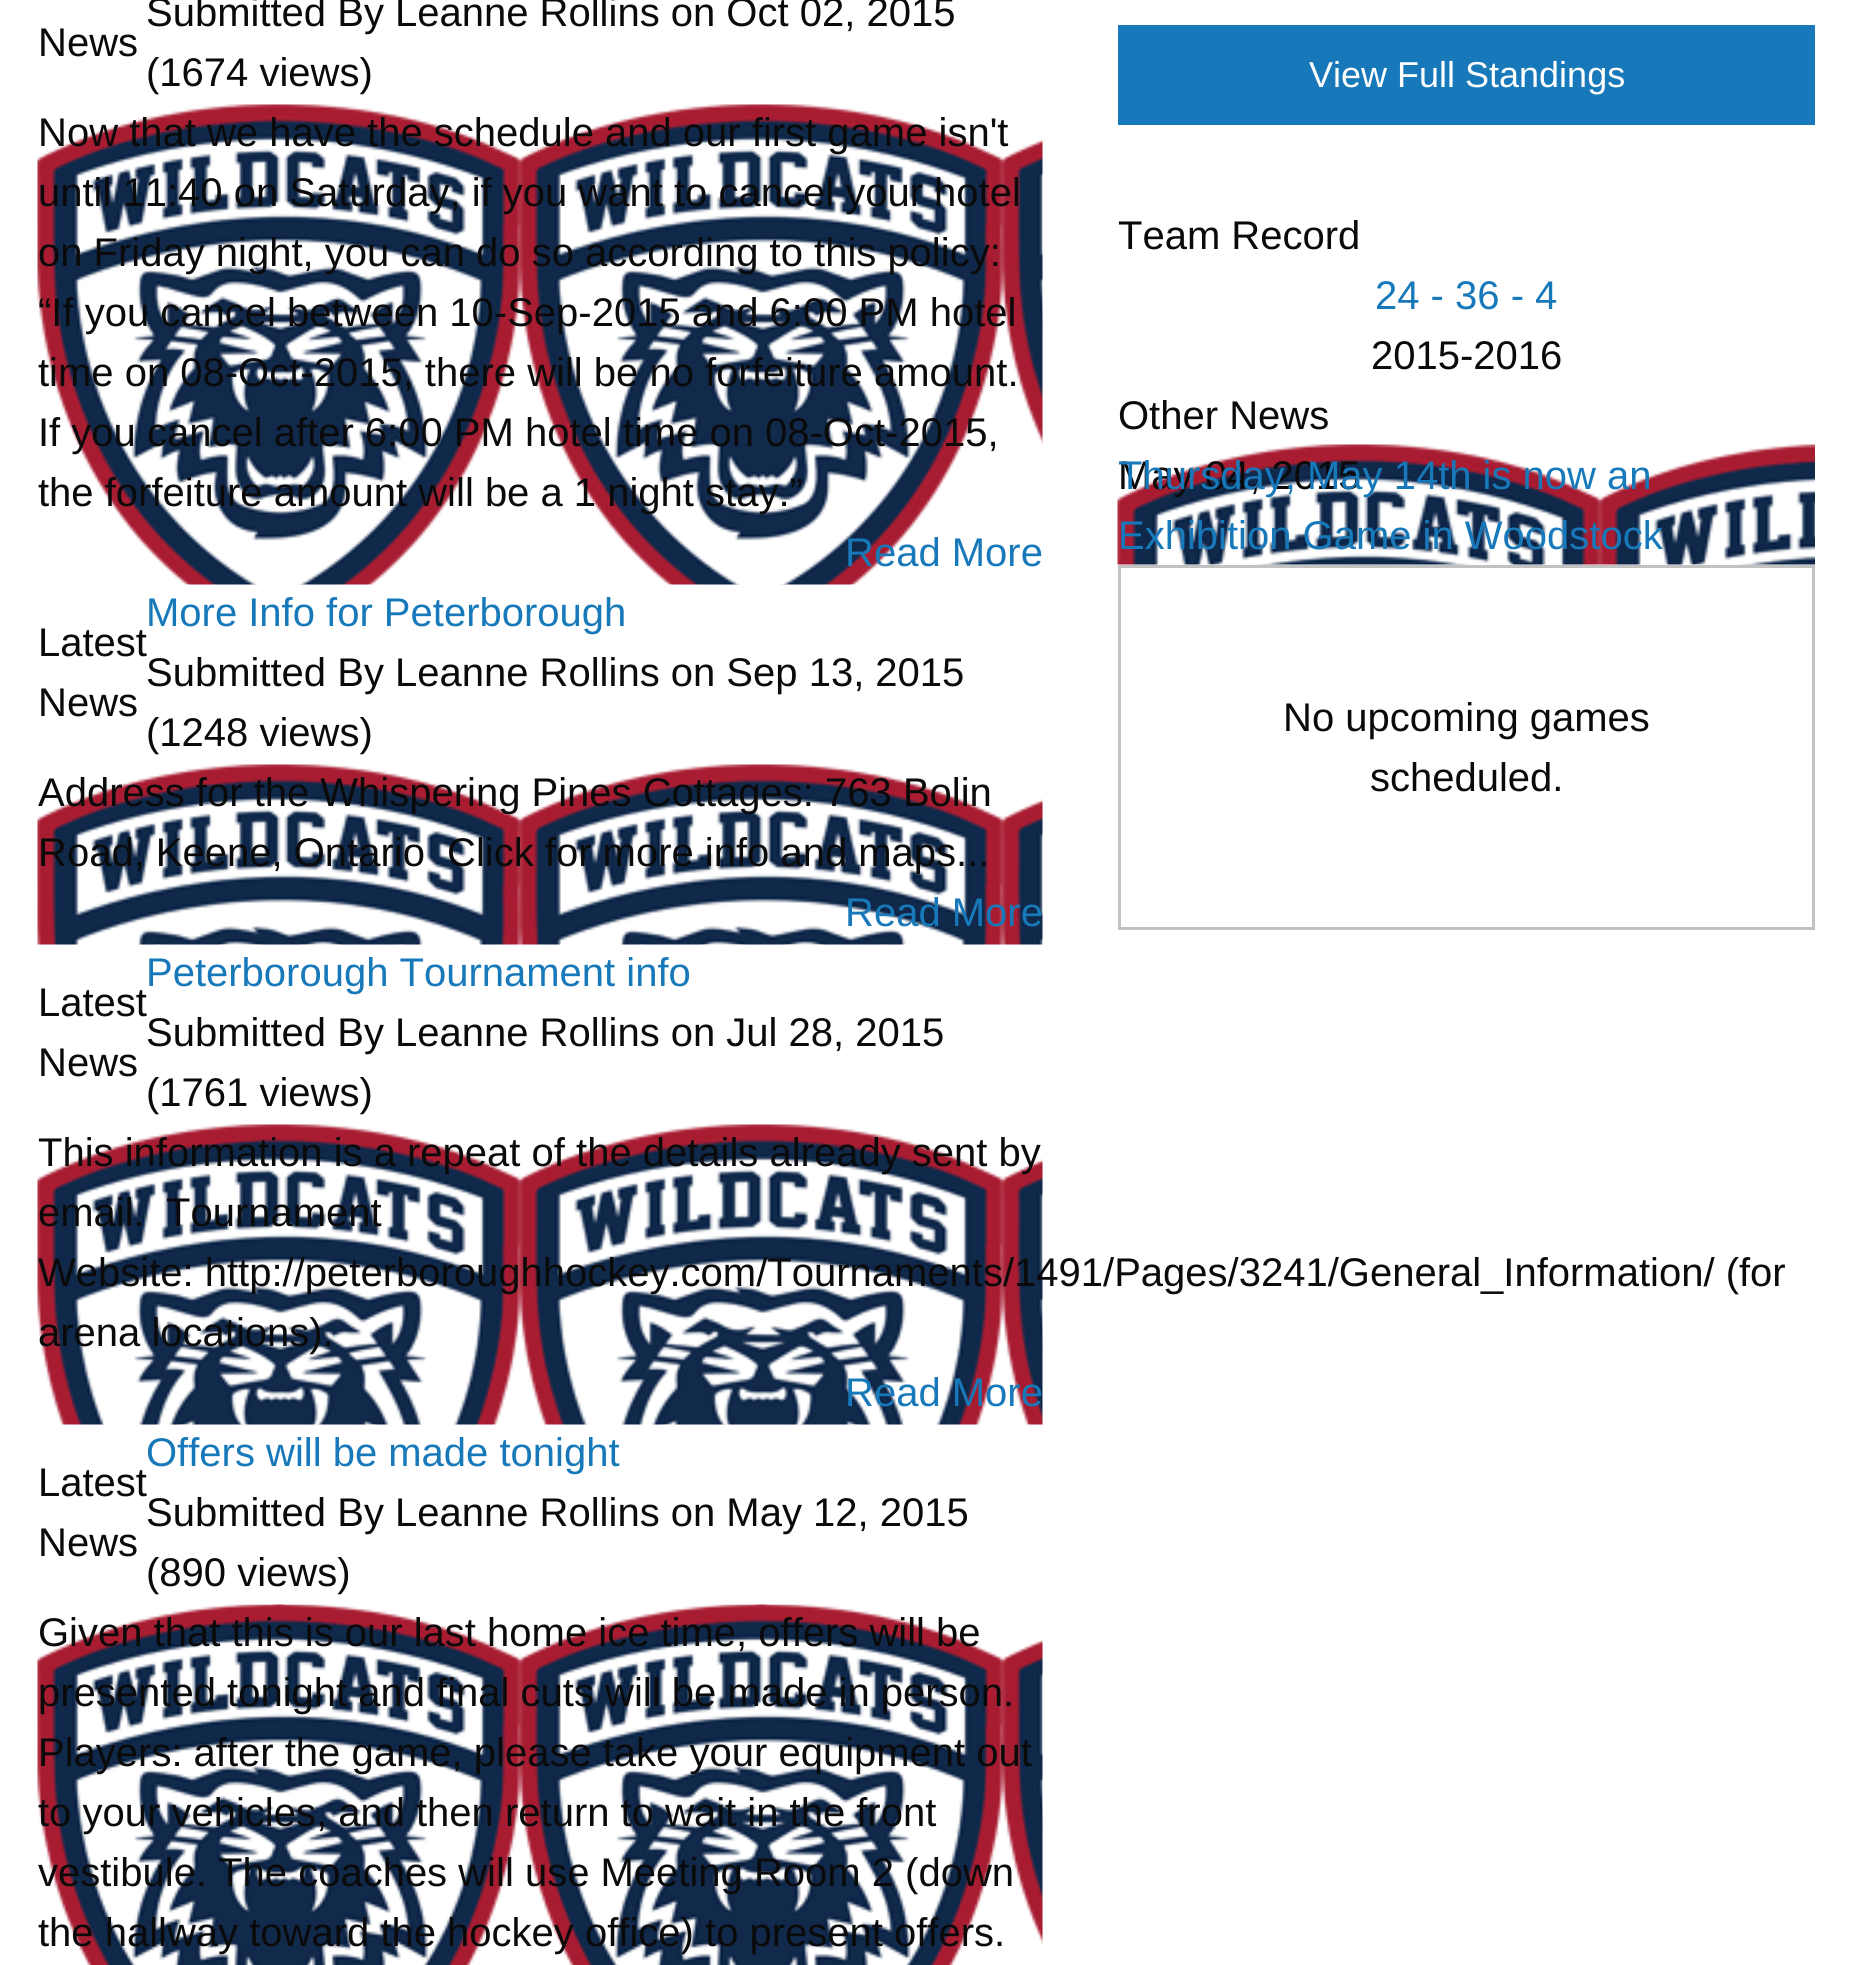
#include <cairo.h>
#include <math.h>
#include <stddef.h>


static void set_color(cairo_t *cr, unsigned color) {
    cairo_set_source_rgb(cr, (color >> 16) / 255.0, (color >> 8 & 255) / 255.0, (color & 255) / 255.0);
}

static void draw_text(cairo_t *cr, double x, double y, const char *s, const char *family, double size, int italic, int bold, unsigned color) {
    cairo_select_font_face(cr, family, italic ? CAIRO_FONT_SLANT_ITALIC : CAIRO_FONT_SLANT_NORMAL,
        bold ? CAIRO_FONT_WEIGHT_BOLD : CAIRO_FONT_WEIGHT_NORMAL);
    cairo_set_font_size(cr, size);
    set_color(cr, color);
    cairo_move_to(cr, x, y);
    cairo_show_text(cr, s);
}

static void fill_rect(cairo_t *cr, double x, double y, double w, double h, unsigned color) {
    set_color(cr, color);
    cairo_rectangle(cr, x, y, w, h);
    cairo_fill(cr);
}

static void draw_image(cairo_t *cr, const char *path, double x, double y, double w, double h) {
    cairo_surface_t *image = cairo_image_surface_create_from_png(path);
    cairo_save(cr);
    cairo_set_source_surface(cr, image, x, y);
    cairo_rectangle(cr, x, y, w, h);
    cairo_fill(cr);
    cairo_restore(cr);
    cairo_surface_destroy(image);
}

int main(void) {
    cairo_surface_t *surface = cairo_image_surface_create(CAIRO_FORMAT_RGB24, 1852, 1965);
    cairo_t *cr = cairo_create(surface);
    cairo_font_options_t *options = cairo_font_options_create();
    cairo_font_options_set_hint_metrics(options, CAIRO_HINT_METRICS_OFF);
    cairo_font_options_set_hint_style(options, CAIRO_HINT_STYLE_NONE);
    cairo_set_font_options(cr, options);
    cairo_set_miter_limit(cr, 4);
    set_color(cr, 0xFFFFFF);
    cairo_paint(cr);
    draw_text(cr, 38, 56, "News", "Liberation Sans", 40, 0, 0, 0x0A0A0A);
    draw_text(cr, 146, 26, "Submitted By Leanne Rollins on Oct 02, 2015", "Liberation Sans", 40, 0, 0, 0x0A0A0A);
    draw_text(cr, 146, 86, "(1674 views)", "Liberation Sans", 40, 0, 0, 0x0A0A0A);
    draw_image(cr, "assets/img1.png", 37, 104, 1006, 481);
    draw_text(cr, 38, 146, "Now that we have the schedule and our first game isn't", "Liberation Sans", 40, 0, 0, 0x0A0A0A);
    draw_text(cr, 38, 206, "until 11:40 on Saturday, if you want to cancel your hotel", "Liberation Sans", 40, 0, 0, 0x0A0A0A);
    draw_text(cr, 38, 266, "on Friday night, you can do so according to this policy:", "Liberation Sans", 40, 0, 0, 0x0A0A0A);
    draw_text(cr, 38, 326, "“If you cancel between 10-Sep-2015 and 6:00 PM hotel", "Liberation Sans", 40, 0, 0, 0x0A0A0A);
    draw_text(cr, 38, 386, "time on 08-Oct-2015, there will be no forfeiture amount.", "Liberation Sans", 40, 0, 0, 0x0A0A0A);
    draw_text(cr, 38, 446, "If you cancel after 6:00 PM hotel time on 08-Oct-2015,", "Liberation Sans", 40, 0, 0, 0x0A0A0A);
    draw_text(cr, 38, 506, "the forfeiture amount will be a 1 night stay.”", "Liberation Sans", 40, 0, 0, 0x0A0A0A);
    draw_text(cr, 845, 566, "Read More", "Liberation Sans", 40, 0, 0, 0x1779BA);
    draw_text(cr, 38, 656, "Latest", "Liberation Sans", 40, 0, 0, 0x0A0A0A);
    draw_text(cr, 38, 716, "News", "Liberation Sans", 40, 0, 0, 0x0A0A0A);
    draw_text(cr, 146, 626, "More Info for Peterborough", "Liberation Sans", 40, 0, 0, 0x1779BA);
    draw_text(cr, 146, 686, "Submitted By Leanne Rollins on Sep 13, 2015", "Liberation Sans", 40, 0, 0, 0x0A0A0A);
    draw_text(cr, 146, 746, "(1248 views)", "Liberation Sans", 40, 0, 0, 0x0A0A0A);
    draw_image(cr, "assets/img2.png", 37, 764, 1006, 181);
    draw_text(cr, 38, 806, "Address for the Whispering Pines Cottages: 763 Bolin", "Liberation Sans", 40, 0, 0, 0x0A0A0A);
    draw_text(cr, 38, 866, "Road, Keene, Ontario", "Liberation Sans", 40, 0, 0, 0x0A0A0A);
    draw_text(cr, 447, 866, "Click for more info and maps...", "Liberation Sans", 40, 0, 0, 0x0A0A0A);
    draw_text(cr, 845, 926, "Read More", "Liberation Sans", 40, 0, 0, 0x1779BA);
    draw_text(cr, 38, 1016, "Latest", "Liberation Sans", 40, 0, 0, 0x0A0A0A);
    draw_text(cr, 38, 1076, "News", "Liberation Sans", 40, 0, 0, 0x0A0A0A);
    draw_text(cr, 146, 986, "Peterborough Tournament info", "Liberation Sans", 40, 0, 0, 0x1779BA);
    draw_text(cr, 146, 1046, "Submitted By Leanne Rollins on Jul 28, 2015", "Liberation Sans", 40, 0, 0, 0x0A0A0A);
    draw_text(cr, 146, 1106, "(1761 views)", "Liberation Sans", 40, 0, 0, 0x0A0A0A);
    draw_image(cr, "assets/img3.png", 37, 1124, 1006, 301);
    draw_text(cr, 38, 1166, "This information is a repeat of the details already sent by", "Liberation Sans", 40, 0, 0, 0x0A0A0A);
    draw_text(cr, 38, 1226, "email.", "Liberation Sans", 40, 0, 0, 0x0A0A0A);
    draw_text(cr, 166, 1226, "Tournament", "Liberation Sans", 40, 0, 0, 0x0A0A0A);
    draw_text(cr, 38, 1286, "Website: http://peterboroughhockey.com/Tournaments/1491/Pages/3241/General_Information/ (for", "Liberation Sans", 40, 0, 0, 0x0A0A0A);
    draw_text(cr, 38, 1346, "arena locations).", "Liberation Sans", 40, 0, 0, 0x0A0A0A);
    draw_text(cr, 845, 1406, "Read More", "Liberation Sans", 40, 0, 0, 0x1779BA);
    draw_text(cr, 38, 1496, "Latest", "Liberation Sans", 40, 0, 0, 0x0A0A0A);
    draw_text(cr, 38, 1556, "News", "Liberation Sans", 40, 0, 0, 0x0A0A0A);
    draw_text(cr, 146, 1466, "Offers will be made tonight", "Liberation Sans", 40, 0, 0, 0x1779BA);
    draw_text(cr, 146, 1526, "Submitted By Leanne Rollins on May 12, 2015", "Liberation Sans", 40, 0, 0, 0x0A0A0A);
    draw_text(cr, 146, 1586, "(890 views)", "Liberation Sans", 40, 0, 0, 0x0A0A0A);
    draw_image(cr, "assets/img4.png", 37, 1604, 1006, 361);
    draw_text(cr, 38, 1646, "Given that this is our last home ice time, offers will be", "Liberation Sans", 40, 0, 0, 0x0A0A0A);
    draw_text(cr, 38, 1706, "presented tonight and final cuts will be made in person.", "Liberation Sans", 40, 0, 0, 0x0A0A0A);
    draw_text(cr, 38, 1766, "Players: after the game, please take your equipment out", "Liberation Sans", 40, 0, 0, 0x0A0A0A);
    draw_text(cr, 38, 1826, "to your vehicles, and then return to wait in the front", "Liberation Sans", 40, 0, 0, 0x0A0A0A);
    draw_text(cr, 38, 1886, "vestibule. The coaches will use Meeting Room 2 (down", "Liberation Sans", 40, 0, 0, 0x0A0A0A);
    draw_text(cr, 38, 1946, "the hallway toward the hockey office) to present offers.", "Liberation Sans", 40, 0, 0, 0x0A0A0A);
    fill_rect(cr, 1118, 25, 697, 100, 0x1779BA);
    draw_text(cr, 1309, 87, "View Full Standings", "Liberation Sans", 36, 0, 0, 0xFEFEFE);
    draw_text(cr, 1118, 249, "Team Record", "Liberation Sans", 40, 0, 0, 0x0A0A0A);
    draw_text(cr, 1375, 309, "24 - 36 - 4", "Liberation Sans", 40, 0, 0, 0x1779BA);
    draw_text(cr, 1371, 369, "2015-2016", "Liberation Sans", 40, 0, 0, 0x0A0A0A);
    draw_text(cr, 1118, 429, "Other News", "Liberation Sans", 40, 0, 0, 0x0A0A0A);
    draw_image(cr, "assets/img5.png", 1117, 444, 698, 121);
    draw_text(cr, 1118, 489, "May 04, 2015", "Liberation Sans", 40, 0, 0, 0x0A0A0A);
    draw_text(cr, 1118, 489, "Thursday, May 14th is now an", "Liberation Sans", 40, 0, 0, 0x1779BA);
    draw_text(cr, 1118, 549, "Exhibition Game in Woodstock", "Liberation Sans", 40, 0, 0, 0x1779BA);
    cairo_rectangle(cr, 1119.5, 566.5, 694, 362);
    set_color(cr, 0xC2C2C2);
    cairo_set_line_width(cr, 3);
    cairo_stroke(cr);
    draw_text(cr, 1283, 731, "No upcoming games", "Liberation Sans", 40, 0, 0, 0x0A0A0A);
    draw_text(cr, 1370, 791, "scheduled.", "Liberation Sans", 40, 0, 0, 0x0A0A0A);
    cairo_surface_write_to_png(surface, "output.png");
    cairo_font_options_destroy(options);
    cairo_destroy(cr);
    cairo_surface_destroy(surface);
    return 0;
}
